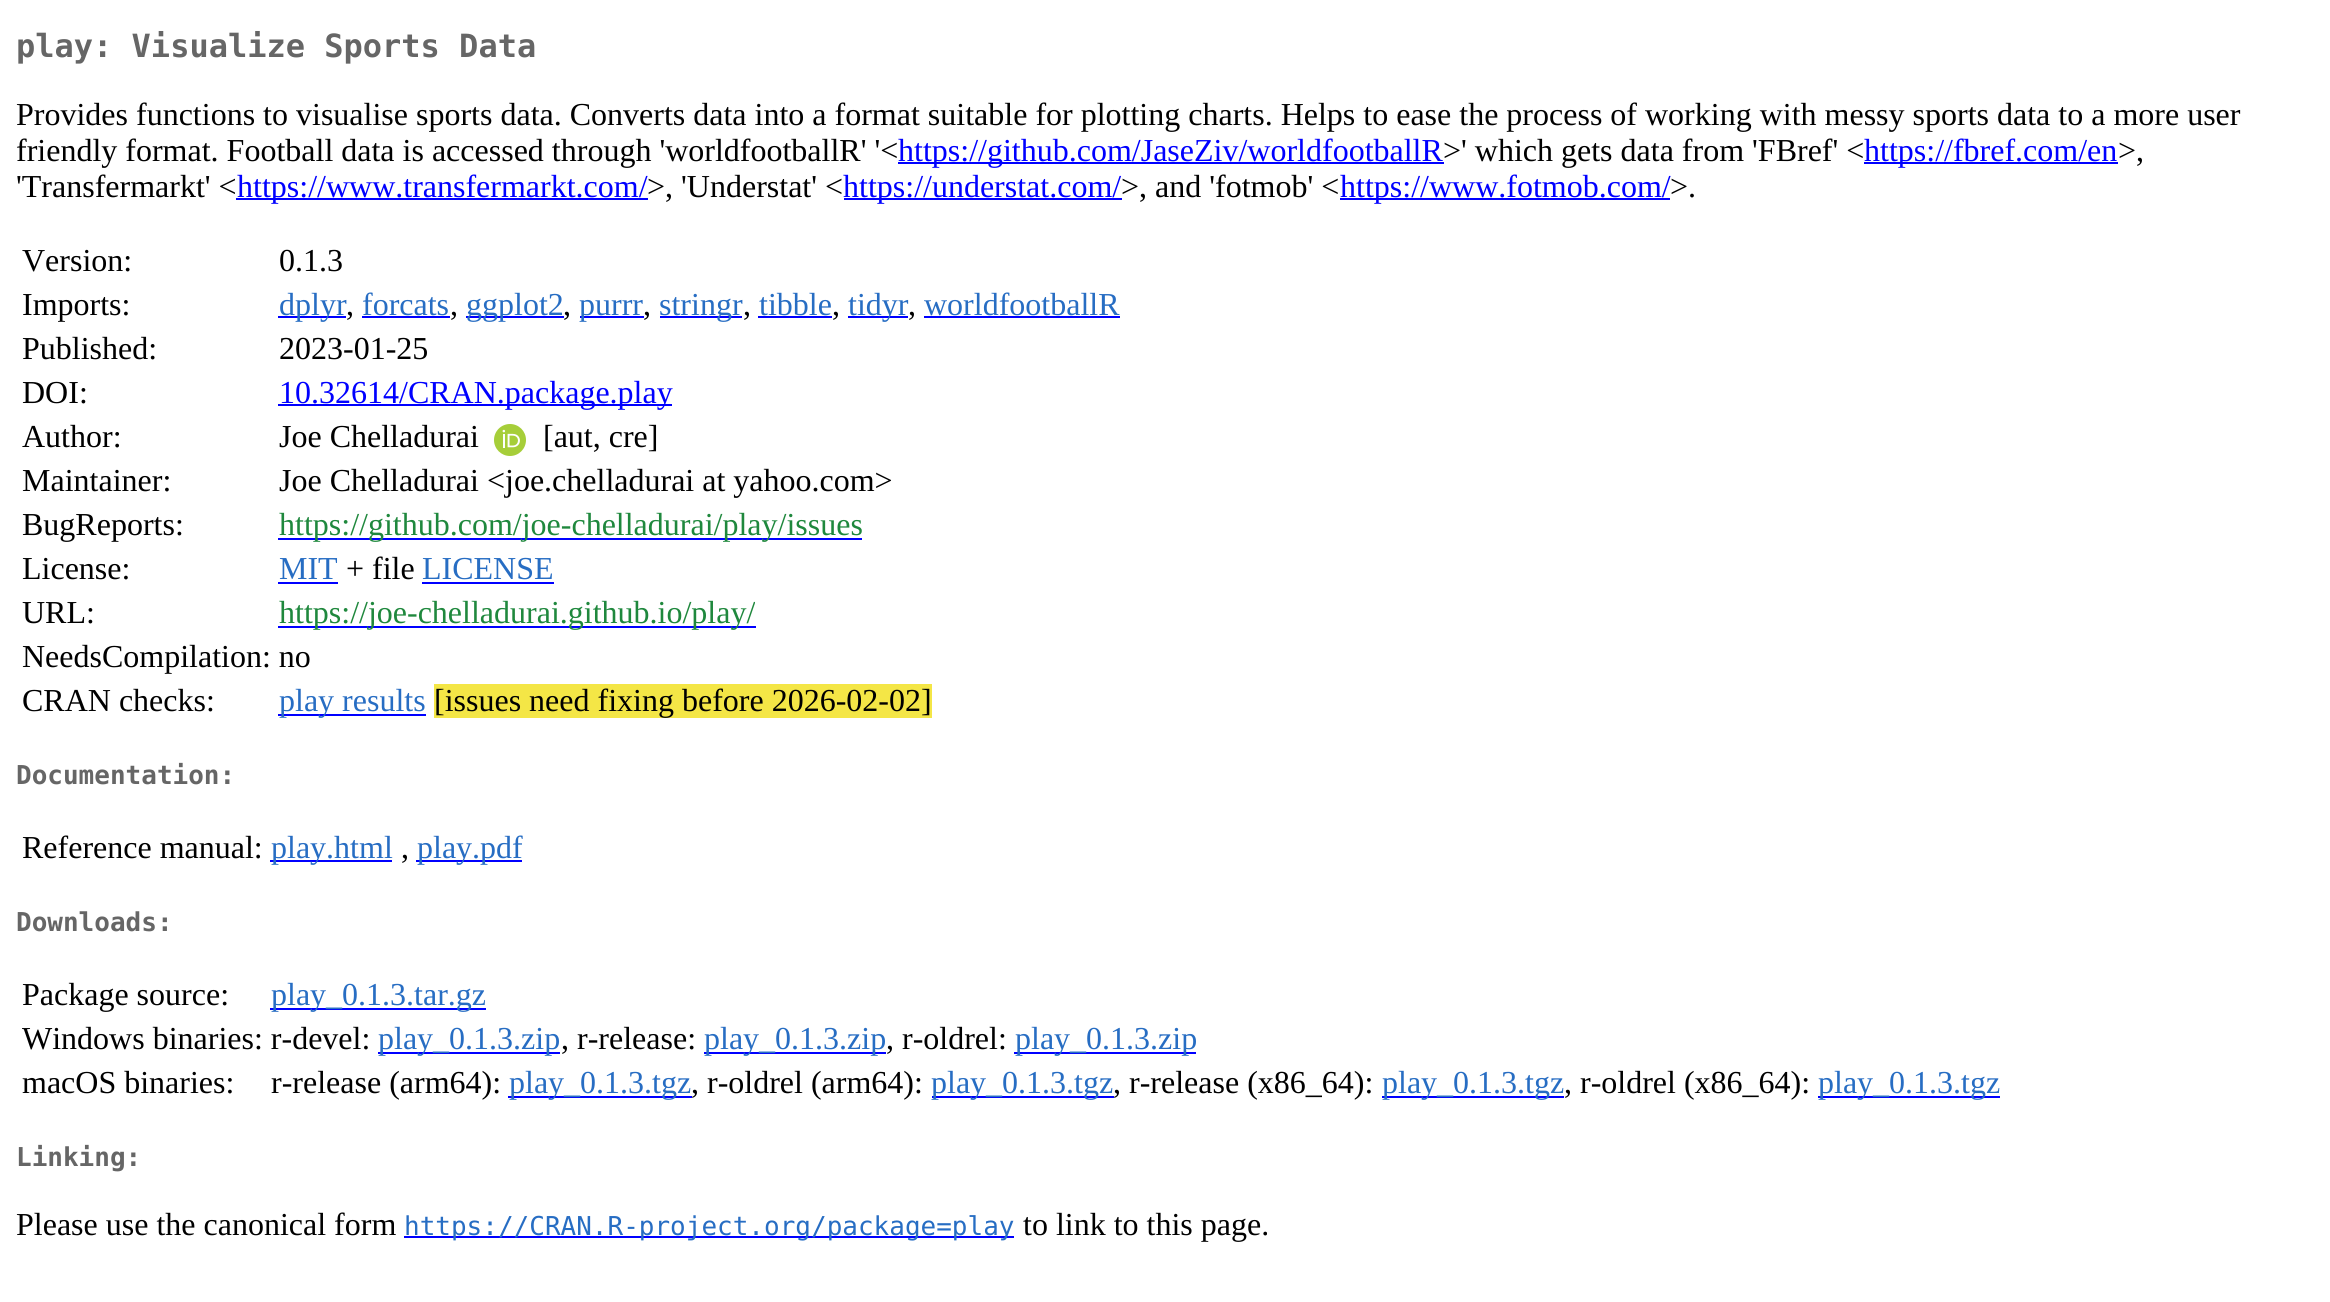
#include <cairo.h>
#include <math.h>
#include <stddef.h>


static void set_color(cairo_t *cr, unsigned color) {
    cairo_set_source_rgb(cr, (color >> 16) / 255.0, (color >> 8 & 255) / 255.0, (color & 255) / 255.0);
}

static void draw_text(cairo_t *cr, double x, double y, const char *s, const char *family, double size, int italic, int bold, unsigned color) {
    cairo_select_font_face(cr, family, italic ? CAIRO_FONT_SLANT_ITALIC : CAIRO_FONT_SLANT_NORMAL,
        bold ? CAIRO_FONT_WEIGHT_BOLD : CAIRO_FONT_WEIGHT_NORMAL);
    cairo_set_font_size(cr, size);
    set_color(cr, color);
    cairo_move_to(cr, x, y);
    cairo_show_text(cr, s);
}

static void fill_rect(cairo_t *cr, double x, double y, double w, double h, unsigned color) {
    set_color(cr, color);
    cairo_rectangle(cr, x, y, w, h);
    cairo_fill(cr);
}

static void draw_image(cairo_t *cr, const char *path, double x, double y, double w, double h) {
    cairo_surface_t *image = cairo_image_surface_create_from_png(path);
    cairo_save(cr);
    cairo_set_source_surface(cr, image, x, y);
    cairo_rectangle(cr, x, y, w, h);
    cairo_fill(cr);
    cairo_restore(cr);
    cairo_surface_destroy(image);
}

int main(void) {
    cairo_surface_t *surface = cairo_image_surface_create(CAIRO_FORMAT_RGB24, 2330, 1302);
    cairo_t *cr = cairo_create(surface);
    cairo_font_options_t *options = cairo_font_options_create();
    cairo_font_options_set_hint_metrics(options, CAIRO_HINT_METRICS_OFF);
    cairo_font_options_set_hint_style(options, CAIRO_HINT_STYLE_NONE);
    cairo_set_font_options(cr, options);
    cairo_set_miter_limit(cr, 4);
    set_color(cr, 0xFFFFFF);
    cairo_paint(cr);
    draw_text(cr, 16, 57, "play: Visualize Sports Data", "DejaVu Sans Mono", 32, 0, 1, 0x666666);
    draw_text(cr, 16, 125, "Provides functions to visualise sports data. Converts data into a format suitable for plotting charts. Helps to ease the process of working with messy sports data to a more user", "Liberation Serif", 32, 0, 0, 0x000000);
    draw_text(cr, 16, 161, "friendly format. Football data is accessed through 'worldfootballR' '<", "Liberation Serif", 32, 0, 0, 0x000000);
    fill_rect(cr, 898, 162, 546, 2, 0x0000FF);
    draw_text(cr, 898, 161, "https://github.com/JaseZiv/worldfootballR", "Liberation Serif", 32, 0, 0, 0x0000FF);
    draw_text(cr, 1443, 161, ">' which gets data from 'FBref' <", "Liberation Serif", 32, 0, 0, 0x000000);
    fill_rect(cr, 1864, 162, 254, 2, 0x0000FF);
    draw_text(cr, 1864, 161, "https://fbref.com/en", "Liberation Serif", 32, 0, 0, 0x0000FF);
    draw_text(cr, 2118, 161, ">,", "Liberation Serif", 32, 0, 0, 0x000000);
    draw_text(cr, 16, 197, "'Transfermarkt' <", "Liberation Serif", 32, 0, 0, 0x000000);
    fill_rect(cr, 236, 198, 412, 2, 0x0000FF);
    draw_text(cr, 237, 197, "https://www.transfermarkt.com/", "Liberation Serif", 32, 0, 0, 0x0000FF);
    draw_text(cr, 647, 197, ">, 'Understat' <", "Liberation Serif", 32, 0, 0, 0x000000);
    fill_rect(cr, 844, 198, 278, 2, 0x0000FF);
    draw_text(cr, 843, 197, "https://understat.com/", "Liberation Serif", 32, 0, 0, 0x0000FF);
    draw_text(cr, 1121, 197, ">, and 'fotmob' <", "Liberation Serif", 32, 0, 0, 0x000000);
    fill_rect(cr, 1340, 198, 330, 2, 0x0000FF);
    draw_text(cr, 1340, 197, "https://www.fotmob.com/", "Liberation Serif", 32, 0, 0, 0x0000FF);
    draw_text(cr, 1670, 197, ">.", "Liberation Serif", 32, 0, 0, 0x000000);
    draw_text(cr, 22, 271, "Version:", "Liberation Serif", 32, 0, 0, 0x000000);
    draw_text(cr, 279, 271, "0.1.3", "Liberation Serif", 32, 0, 0, 0x000000);
    draw_text(cr, 22, 315, "Imports:", "Liberation Serif", 32, 0, 0, 0x000000);
    fill_rect(cr, 278, 316, 68, 2, 0x0000FF);
    draw_text(cr, 279, 315, "dplyr", "Liberation Serif", 32, 0, 0, 0x276DC3);
    draw_text(cr, 346, 315, ",", "Liberation Serif", 32, 0, 0, 0x000000);
    draw_text(cr, 362, 315, "forcats", "Liberation Serif", 32, 0, 0, 0x276DC3);
    fill_rect(cr, 362, 316, 88, 2, 0x0000FF);
    draw_text(cr, 450, 315, ",", "Liberation Serif", 32, 0, 0, 0x000000);
    fill_rect(cr, 466, 316, 98, 2, 0x0000FF);
    draw_text(cr, 466, 315, "ggplot2", "Liberation Serif", 32, 0, 0, 0x276DC3);
    draw_text(cr, 563, 315, ",", "Liberation Serif", 32, 0, 0, 0x000000);
    fill_rect(cr, 580, 316, 64, 2, 0x0000FF);
    draw_text(cr, 579, 315, "purrr", "Liberation Serif", 32, 0, 0, 0x276DC3);
    draw_text(cr, 643, 315, ",", "Liberation Serif", 32, 0, 0, 0x000000);
    fill_rect(cr, 660, 316, 82, 2, 0x0000FF);
    draw_text(cr, 659, 315, "stringr", "Liberation Serif", 32, 0, 0, 0x276DC3);
    draw_text(cr, 743, 315, ",", "Liberation Serif", 32, 0, 0, 0x000000);
    draw_text(cr, 759, 315, "tibble", "Liberation Serif", 32, 0, 0, 0x276DC3);
    fill_rect(cr, 758, 316, 74, 2, 0x0000FF);
    draw_text(cr, 832, 315, ",", "Liberation Serif", 32, 0, 0, 0x000000);
    fill_rect(cr, 848, 316, 60, 2, 0x0000FF);
    draw_text(cr, 848, 315, "tidyr", "Liberation Serif", 32, 0, 0, 0x276DC3);
    draw_text(cr, 908, 315, ",", "Liberation Serif", 32, 0, 0, 0x000000);
    draw_text(cr, 924, 315, "worldfootballR", "Liberation Serif", 32, 0, 0, 0x276DC3);
    fill_rect(cr, 924, 316, 196, 2, 0x0000FF);
    draw_text(cr, 22, 359, "Published:", "Liberation Serif", 32, 0, 0, 0x000000);
    draw_text(cr, 279, 359, "2023-01-25", "Liberation Serif", 32, 0, 0, 0x000000);
    draw_text(cr, 22, 403, "DOI:", "Liberation Serif", 32, 0, 0, 0x000000);
    fill_rect(cr, 278, 404, 394, 2, 0x0000FF);
    draw_text(cr, 279, 403, "10.32614/CRAN.package.play", "Liberation Serif", 32, 0, 0, 0x0000FF);
    draw_text(cr, 22, 447, "Author:", "Liberation Serif", 32, 0, 0, 0x000000);
    draw_text(cr, 279, 447, "Joe Chelladurai", "Liberation Serif", 32, 0, 0, 0x000000);
    draw_image(cr, "assets/img1.png", 494, 424, 32, 32);
    draw_text(cr, 543, 447, "[aut, cre]", "Liberation Serif", 32, 0, 0, 0x000000);
    draw_text(cr, 22, 491, "Maintainer:", "Liberation Serif", 32, 0, 0, 0x000000);
    draw_text(cr, 279, 491, "Joe Chelladurai <joe.chelladurai at yahoo.com>", "Liberation Serif", 32, 0, 0, 0x000000);
    draw_text(cr, 22, 535, "BugReports:", "Liberation Serif", 32, 0, 0, 0x000000);
    fill_rect(cr, 278, 538, 584, 2, 0x0000FF);
    draw_text(cr, 279, 535, "https://github.com/joe-chelladurai/play/issues", "Liberation Serif", 32, 0, 0, 0x1F883D);
    draw_text(cr, 22, 579, "License:", "Liberation Serif", 32, 0, 0, 0x000000);
    draw_text(cr, 279, 579, "MIT", "Liberation Serif", 32, 0, 0, 0x276DC3);
    fill_rect(cr, 278, 582, 60, 2, 0x0000FF);
    draw_text(cr, 346, 579, "+ file", "Liberation Serif", 32, 0, 0, 0x000000);
    draw_text(cr, 422, 579, "LICENSE", "Liberation Serif", 32, 0, 0, 0x276DC3);
    fill_rect(cr, 422, 582, 132, 2, 0x0000FF);
    draw_text(cr, 22, 623, "URL:", "Liberation Serif", 32, 0, 0, 0x000000);
    fill_rect(cr, 278, 626, 478, 2, 0x0000FF);
    draw_text(cr, 279, 623, "https://joe-chelladurai.github.io/play/", "Liberation Serif", 32, 0, 0, 0x1F883D);
    draw_text(cr, 22, 667, "NeedsCompilation: no", "Liberation Serif", 32, 0, 0, 0x000000);
    draw_text(cr, 22, 711, "CRAN checks:", "Liberation Serif", 32, 0, 0, 0x000000);
    fill_rect(cr, 278, 714, 148, 2, 0x0000FF);
    draw_text(cr, 279, 711, "play results", "Liberation Serif", 32, 0, 0, 0x276DC3);
    fill_rect(cr, 434, 684, 498, 34, 0xF4E646);
    draw_text(cr, 434, 711, "[issues need fixing before 2026-02-02]", "Liberation Serif", 32, 0, 0, 0x000000);
    draw_text(cr, 16, 784, "Documentation:", "DejaVu Sans Mono", 26, 0, 1, 0x666666);
    draw_text(cr, 22, 858, "Reference manual:", "Liberation Serif", 32, 0, 0, 0x000000);
    fill_rect(cr, 270, 860, 122, 2, 0x0000FF);
    draw_text(cr, 271, 858, "play.html", "Liberation Serif", 32, 0, 0, 0x276DC3);
    draw_text(cr, 401, 858, ",", "Liberation Serif", 32, 0, 0, 0x000000);
    fill_rect(cr, 416, 860, 106, 2, 0x0000FF);
    draw_text(cr, 417, 858, "play.pdf", "Liberation Serif", 32, 0, 0, 0x276DC3);
    draw_text(cr, 16, 931, "Downloads:", "DejaVu Sans Mono", 26, 0, 1, 0x666666);
    draw_text(cr, 22, 1005, "Package source:", "Liberation Serif", 32, 0, 0, 0x000000);
    fill_rect(cr, 270, 1008, 216, 2, 0x0000FF);
    draw_text(cr, 271, 1005, "play_0.1.3.tar.gz", "Liberation Serif", 32, 0, 0, 0x276DC3);
    draw_text(cr, 22, 1049, "Windows binaries: r-devel:", "Liberation Serif", 32, 0, 0, 0x000000);
    fill_rect(cr, 378, 1052, 182, 2, 0x0000FF);
    draw_text(cr, 378, 1049, "play_0.1.3.zip", "Liberation Serif", 32, 0, 0, 0x276DC3);
    draw_text(cr, 561, 1049, ", r-release:", "Liberation Serif", 32, 0, 0, 0x000000);
    fill_rect(cr, 704, 1052, 182, 2, 0x0000FF);
    draw_text(cr, 704, 1049, "play_0.1.3.zip", "Liberation Serif", 32, 0, 0, 0x276DC3);
    draw_text(cr, 886, 1049, ", r-oldrel:", "Liberation Serif", 32, 0, 0, 0x000000);
    fill_rect(cr, 1014, 1052, 182, 2, 0x0000FF);
    draw_text(cr, 1015, 1049, "play_0.1.3.zip", "Liberation Serif", 32, 0, 0, 0x276DC3);
    draw_text(cr, 22, 1093, "macOS binaries:", "Liberation Serif", 32, 0, 0, 0x000000);
    draw_text(cr, 271, 1093, "r-release (arm64):", "Liberation Serif", 32, 0, 0, 0x000000);
    fill_rect(cr, 508, 1096, 184, 2, 0x0000FF);
    draw_text(cr, 509, 1093, "play_0.1.3.tgz", "Liberation Serif", 32, 0, 0, 0x276DC3);
    draw_text(cr, 691, 1093, ", r-oldrel (arm64):", "Liberation Serif", 32, 0, 0, 0x000000);
    fill_rect(cr, 932, 1096, 182, 2, 0x0000FF);
    draw_text(cr, 931, 1093, "play_0.1.3.tgz", "Liberation Serif", 32, 0, 0, 0x276DC3);
    draw_text(cr, 1113, 1093, ", r-release (x86_64):", "Liberation Serif", 32, 0, 0, 0x000000);
    fill_rect(cr, 1382, 1096, 182, 2, 0x0000FF);
    draw_text(cr, 1382, 1093, "play_0.1.3.tgz", "Liberation Serif", 32, 0, 0, 0x276DC3);
    draw_text(cr, 1564, 1093, ", r-oldrel (x86_64):", "Liberation Serif", 32, 0, 0, 0x000000);
    fill_rect(cr, 1818, 1096, 182, 2, 0x0000FF);
    draw_text(cr, 1818, 1093, "play_0.1.3.tgz", "Liberation Serif", 32, 0, 0, 0x276DC3);
    draw_text(cr, 16, 1166, "Linking:", "DejaVu Sans Mono", 26, 0, 1, 0x666666);
    draw_text(cr, 16, 1235, "Please use the canonical form", "Liberation Serif", 32, 0, 0, 0x000000);
    fill_rect(cr, 404, 1236, 610, 2, 0x0000FF);
    draw_text(cr, 404, 1235, "https://CRAN.R-project.org/package=play", "DejaVu Sans Mono", 26, 0, 0, 0x276DC3);
    draw_text(cr, 1023, 1235, "to link to this page.", "Liberation Serif", 32, 0, 0, 0x000000);
    cairo_surface_write_to_png(surface, "output.png");
    cairo_font_options_destroy(options);
    cairo_destroy(cr);
    cairo_surface_destroy(surface);
    return 0;
}
